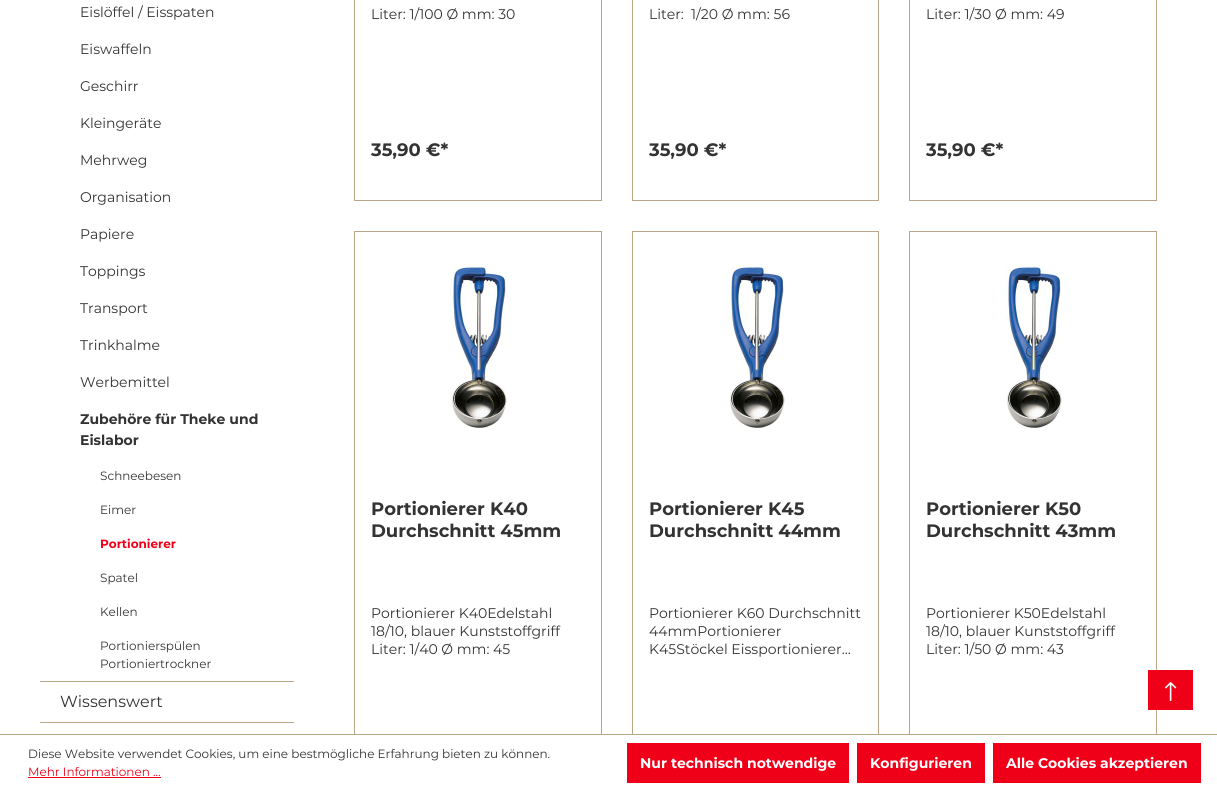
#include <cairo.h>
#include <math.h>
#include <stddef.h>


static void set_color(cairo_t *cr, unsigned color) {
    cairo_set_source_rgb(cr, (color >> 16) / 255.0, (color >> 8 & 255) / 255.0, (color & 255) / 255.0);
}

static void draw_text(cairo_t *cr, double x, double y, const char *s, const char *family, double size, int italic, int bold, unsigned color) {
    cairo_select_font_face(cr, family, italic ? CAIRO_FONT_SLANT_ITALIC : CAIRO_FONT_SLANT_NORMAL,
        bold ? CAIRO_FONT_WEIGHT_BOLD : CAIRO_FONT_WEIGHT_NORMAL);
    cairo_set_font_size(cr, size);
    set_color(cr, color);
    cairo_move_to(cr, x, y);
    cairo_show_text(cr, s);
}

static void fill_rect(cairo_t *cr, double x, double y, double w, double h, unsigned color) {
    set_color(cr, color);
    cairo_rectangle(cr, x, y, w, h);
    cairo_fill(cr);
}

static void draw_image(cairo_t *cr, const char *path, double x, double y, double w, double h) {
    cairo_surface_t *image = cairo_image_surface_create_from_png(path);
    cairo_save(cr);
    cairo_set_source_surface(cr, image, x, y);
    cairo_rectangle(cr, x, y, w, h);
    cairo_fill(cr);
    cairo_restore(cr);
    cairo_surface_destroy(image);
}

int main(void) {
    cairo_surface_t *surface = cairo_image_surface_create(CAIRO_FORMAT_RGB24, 1217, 791);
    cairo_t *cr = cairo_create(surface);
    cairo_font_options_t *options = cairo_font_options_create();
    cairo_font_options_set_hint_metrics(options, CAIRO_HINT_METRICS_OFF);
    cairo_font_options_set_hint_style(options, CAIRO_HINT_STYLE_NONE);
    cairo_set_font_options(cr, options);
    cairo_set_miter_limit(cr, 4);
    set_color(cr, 0xFFFFFF);
    cairo_paint(cr);
    fill_rect(cr, 40, 681, 254, 1, 0xBCA688);
    draw_text(cr, 80, 17, "Eislöffel / Eisspaten", "Montserrat", 14, 0, 0, 0x333333);
    draw_text(cr, 80, 54, "Eiswaffeln", "Montserrat", 14, 0, 0, 0x333333);
    draw_text(cr, 80, 91, "Geschirr", "Montserrat", 14, 0, 0, 0x333333);
    draw_text(cr, 80, 128, "Kleingeräte", "Montserrat", 14, 0, 0, 0x333333);
    draw_text(cr, 80, 165, "Mehrweg", "Montserrat", 14, 0, 0, 0x333333);
    draw_text(cr, 80, 202, "Organisation", "Montserrat", 14, 0, 0, 0x333333);
    draw_text(cr, 80, 239, "Papiere", "Montserrat", 14, 0, 0, 0x333333);
    draw_text(cr, 80, 276, "Toppings", "Montserrat", 14, 0, 0, 0x333333);
    draw_text(cr, 80, 313, "Transport", "Montserrat", 14, 0, 0, 0x333333);
    draw_text(cr, 80, 350, "Trinkhalme", "Montserrat", 14, 0, 0, 0x333333);
    draw_text(cr, 80, 387, "Werbemittel", "Montserrat", 14, 0, 0, 0x333333);
    draw_text(cr, 80, 424, "Zubehöre für Theke und", "Montserrat", 14, 0, 1, 0x333333);
    draw_text(cr, 80, 445, "Eislabor", "Montserrat", 14, 0, 1, 0x333333);
    draw_text(cr, 100, 480, "Schneebesen", "Montserrat", 12, 0, 0, 0x333333);
    draw_text(cr, 100, 514, "Eimer", "Montserrat", 12, 0, 0, 0x333333);
    draw_text(cr, 100, 548, "Portionierer", "Montserrat", 12, 0, 1, 0xEF0018);
    draw_text(cr, 100, 582, "Spatel", "Montserrat", 12, 0, 0, 0x333333);
    draw_text(cr, 100, 616, "Kellen", "Montserrat", 12, 0, 0, 0x333333);
    draw_text(cr, 100, 650, "Portionierspülen", "Montserrat", 12, 0, 0, 0x333333);
    draw_text(cr, 100, 668, "Portioniertrockner", "Montserrat", 12, 0, 0, 0x333333);
    fill_rect(cr, 40, 722, 254, 1, 0xBCA688);
    draw_text(cr, 60, 707, "Wissenswert", "Montserrat", 16, 0, 0, 0x333333);
    cairo_rectangle(cr, 354.5, -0.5, 247, 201);
    set_color(cr, 0xBCA688);
    cairo_set_line_width(cr, 1);
    cairo_stroke(cr);
    draw_text(cr, 371, 19, "Liter: 1/100 Ø mm: 30", "Montserrat", 14, 0, 0, 0x333333);
    draw_text(cr, 371, 156, "35,90 €*", "Montserrat", 18, 0, 1, 0x333333);
    cairo_rectangle(cr, 632.5, -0.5, 246, 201);
    set_color(cr, 0xBCA688);
    cairo_stroke(cr);
    draw_text(cr, 649, 19, "Liter:  1/20 Ø mm: 56", "Montserrat", 14, 0, 0, 0x333333);
    draw_text(cr, 649, 156, "35,90 €*", "Montserrat", 18, 0, 1, 0x333333);
    cairo_rectangle(cr, 909.5, -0.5, 247, 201);
    set_color(cr, 0xBCA688);
    cairo_stroke(cr);
    draw_text(cr, 926, 19, "Liter: 1/30 Ø mm: 49", "Montserrat", 14, 0, 0, 0x333333);
    draw_text(cr, 926, 156, "35,90 €*", "Montserrat", 18, 0, 1, 0x333333);
    cairo_rectangle(cr, 354.5, 231.5, 247, 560);
    set_color(cr, 0xBCA688);
    cairo_stroke(cr);
    draw_image(cr, "assets/img1.png", 450, 264, 57, 164);
    draw_text(cr, 371, 515, "Portionierer K40", "Montserrat", 18, 0, 1, 0x333333);
    draw_text(cr, 371, 537, "Durchschnitt 45mm", "Montserrat", 18, 0, 1, 0x333333);
    draw_text(cr, 371, 618, "Portionierer K40Edelstahl", "Montserrat", 14, 0, 0, 0x333333);
    draw_text(cr, 371, 636, "18/10, blauer Kunststoffgriff", "Montserrat", 14, 0, 0, 0x333333);
    draw_text(cr, 371, 654, "Liter: 1/40 Ø mm: 45", "Montserrat", 14, 0, 0, 0x333333);
    cairo_rectangle(cr, 632.5, 231.5, 246, 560);
    set_color(cr, 0xBCA688);
    cairo_stroke(cr);
    draw_image(cr, "assets/img1.png", 728, 264, 57, 164);
    draw_text(cr, 649, 515, "Portionierer K45", "Montserrat", 18, 0, 1, 0x333333);
    draw_text(cr, 649, 537, "Durchschnitt 44mm", "Montserrat", 18, 0, 1, 0x333333);
    draw_text(cr, 649, 618, "Portionierer K60 Durchschnitt", "Montserrat", 14, 0, 0, 0x333333);
    draw_text(cr, 649, 636, "44mmPortionierer", "Montserrat", 14, 0, 0, 0x333333);
    draw_text(cr, 649, 654, "K45Stöckel Eissportionierer…", "Montserrat", 14, 0, 0, 0x333333);
    cairo_rectangle(cr, 909.5, 231.5, 247, 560);
    set_color(cr, 0xBCA688);
    cairo_stroke(cr);
    draw_image(cr, "assets/img1.png", 1005, 264, 57, 164);
    draw_text(cr, 926, 515, "Portionierer K50", "Montserrat", 18, 0, 1, 0x333333);
    draw_text(cr, 926, 537, "Durchschnitt 43mm", "Montserrat", 18, 0, 1, 0x333333);
    draw_text(cr, 926, 618, "Portionierer K50Edelstahl", "Montserrat", 14, 0, 0, 0x333333);
    draw_text(cr, 926, 636, "18/10, blauer Kunststoffgriff", "Montserrat", 14, 0, 0, 0x333333);
    draw_text(cr, 926, 654, "Liter: 1/50 Ø mm: 43", "Montserrat", 14, 0, 0, 0x333333);
    fill_rect(cr, 1148, 670, 45, 40, 0xEF0018);
    draw_image(cr, "assets/img2.png", 1165, 682, 12, 19);
    fill_rect(cr, 354, 735, 803, 56, 0xFFFFFF);
    fill_rect(cr, 0, 734, 1217, 1, 0xBCA688);
    draw_text(cr, 28, 758, "Diese Website verwendet Cookies, um eine bestmögliche Erfahrung bieten zu können.", "Montserrat", 12, 0, 0, 0x333333);
    draw_text(cr, 28, 776, "Mehr Informationen ...", "Montserrat", 12, 0, 0, 0xEF0018);
    fill_rect(cr, 28, 777, 133, 1, 0xEF0018);
    fill_rect(cr, 627, 743, 222, 40, 0xEF0018);
    draw_text(cr, 640, 768, "Nur technisch notwendige", "Montserrat", 14, 0, 1, 0xFFFFFF);
    fill_rect(cr, 857, 743, 128, 40, 0xEF0018);
    draw_text(cr, 870, 768, "Konfigurieren", "Montserrat", 14, 0, 1, 0xFFFFFF);
    fill_rect(cr, 993, 743, 208, 40, 0xEF0018);
    draw_text(cr, 1006, 768, "Alle Cookies akzeptieren", "Montserrat", 14, 0, 1, 0xFFFFFF);
    cairo_surface_write_to_png(surface, "output.png");
    cairo_font_options_destroy(options);
    cairo_destroy(cr);
    cairo_surface_destroy(surface);
    return 0;
}
